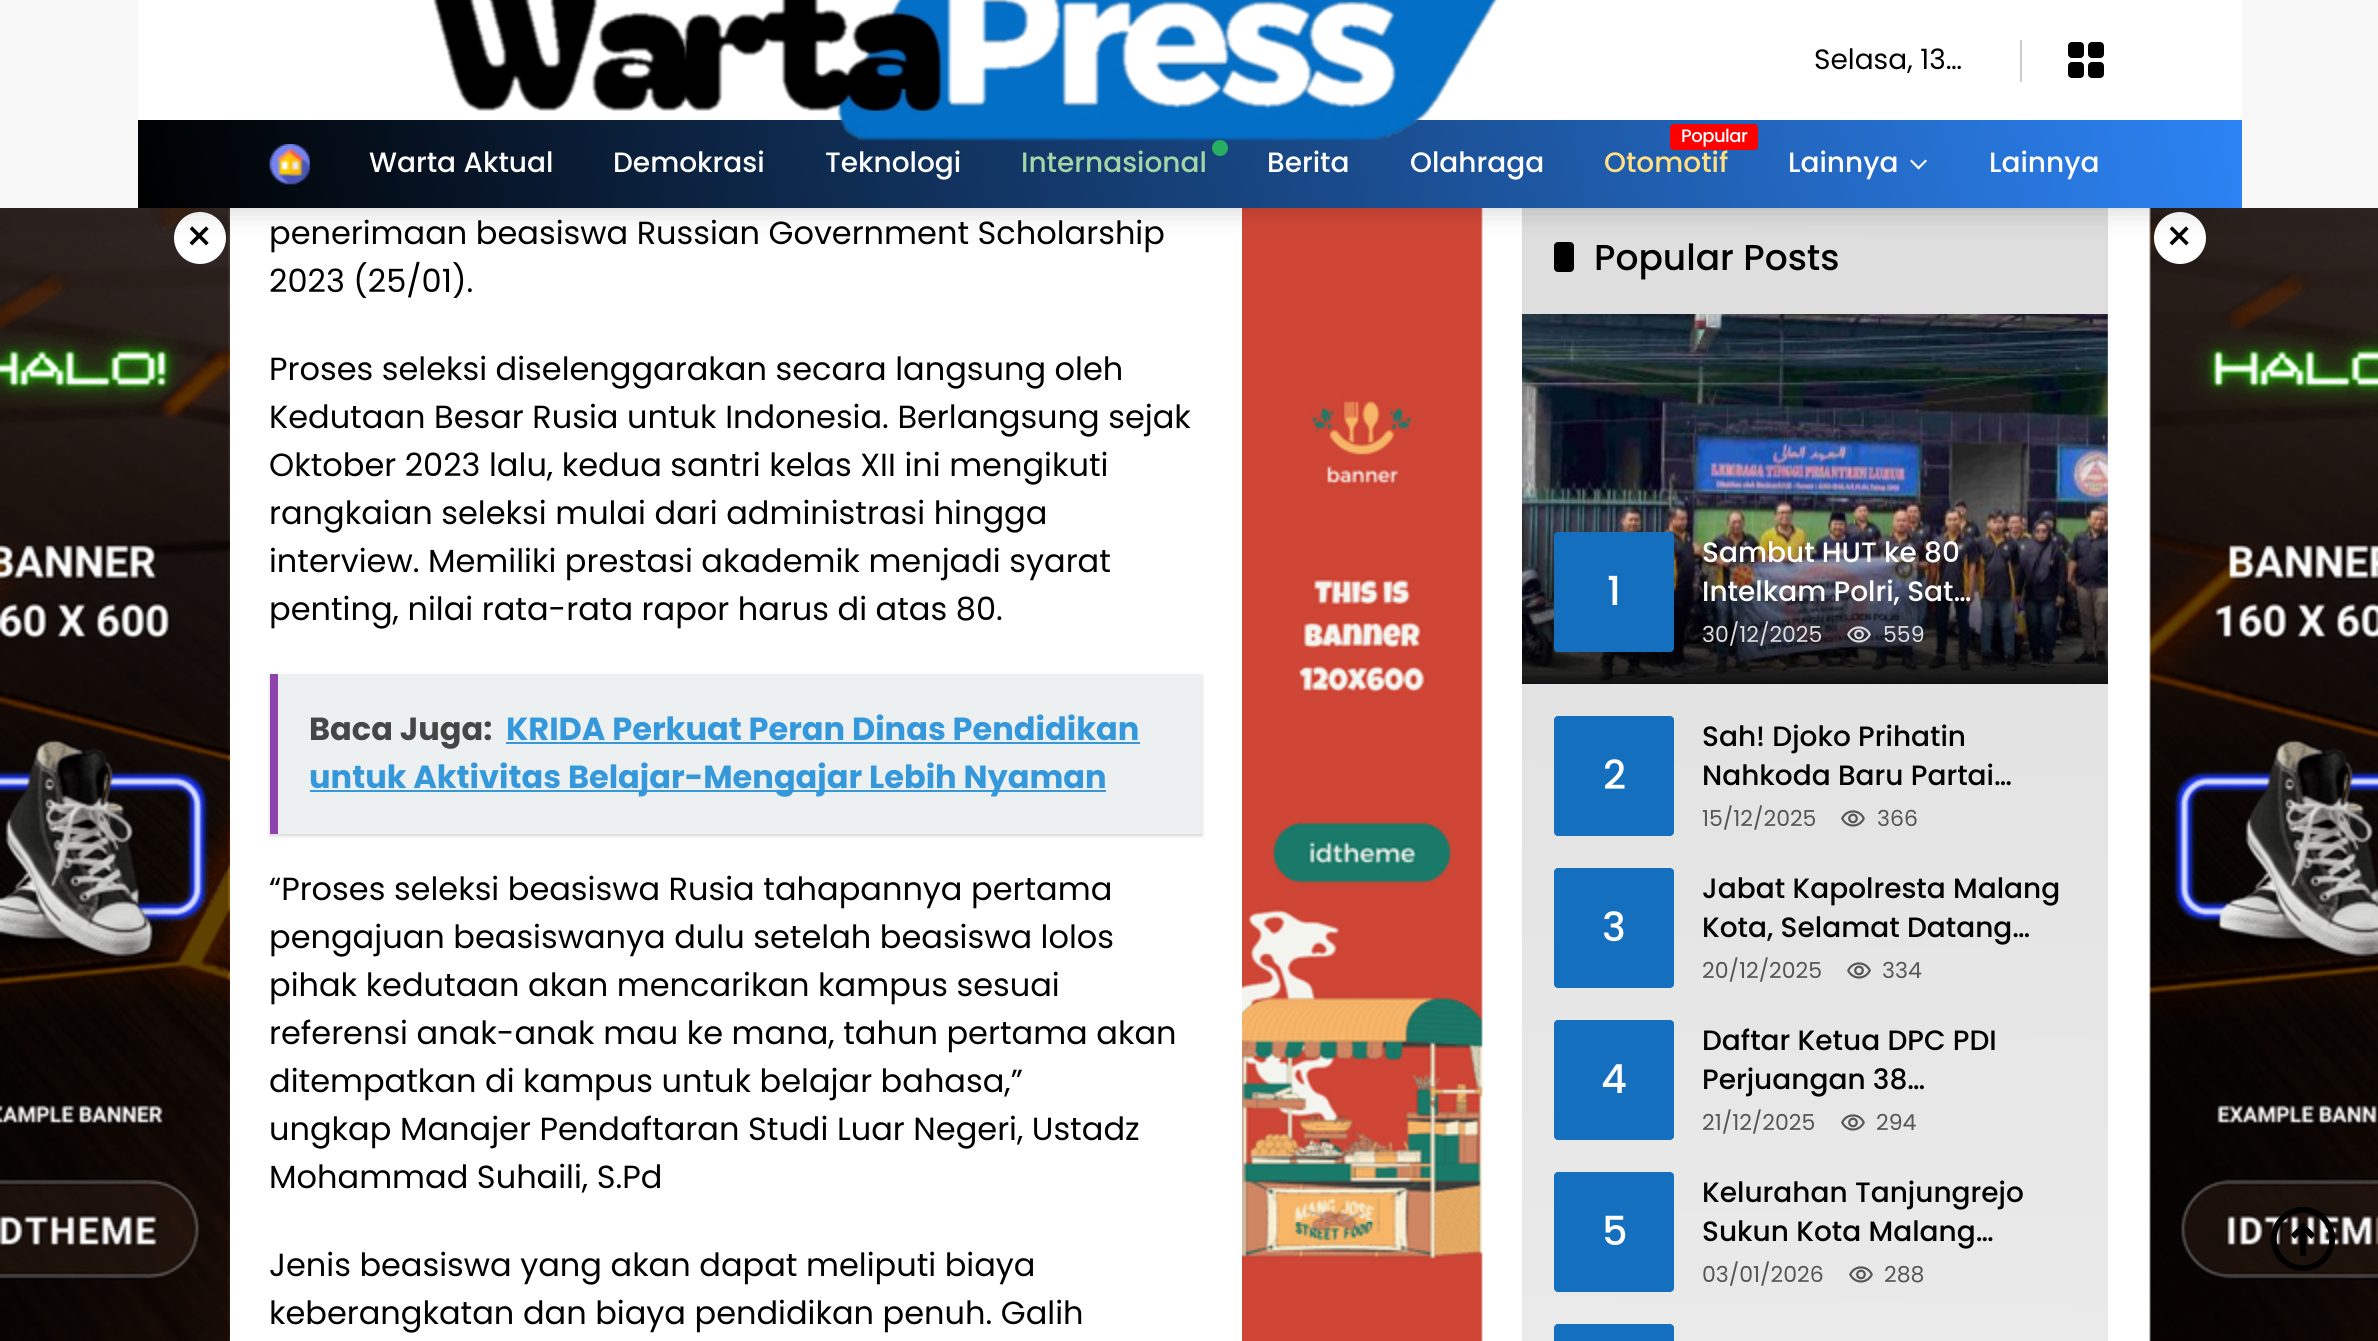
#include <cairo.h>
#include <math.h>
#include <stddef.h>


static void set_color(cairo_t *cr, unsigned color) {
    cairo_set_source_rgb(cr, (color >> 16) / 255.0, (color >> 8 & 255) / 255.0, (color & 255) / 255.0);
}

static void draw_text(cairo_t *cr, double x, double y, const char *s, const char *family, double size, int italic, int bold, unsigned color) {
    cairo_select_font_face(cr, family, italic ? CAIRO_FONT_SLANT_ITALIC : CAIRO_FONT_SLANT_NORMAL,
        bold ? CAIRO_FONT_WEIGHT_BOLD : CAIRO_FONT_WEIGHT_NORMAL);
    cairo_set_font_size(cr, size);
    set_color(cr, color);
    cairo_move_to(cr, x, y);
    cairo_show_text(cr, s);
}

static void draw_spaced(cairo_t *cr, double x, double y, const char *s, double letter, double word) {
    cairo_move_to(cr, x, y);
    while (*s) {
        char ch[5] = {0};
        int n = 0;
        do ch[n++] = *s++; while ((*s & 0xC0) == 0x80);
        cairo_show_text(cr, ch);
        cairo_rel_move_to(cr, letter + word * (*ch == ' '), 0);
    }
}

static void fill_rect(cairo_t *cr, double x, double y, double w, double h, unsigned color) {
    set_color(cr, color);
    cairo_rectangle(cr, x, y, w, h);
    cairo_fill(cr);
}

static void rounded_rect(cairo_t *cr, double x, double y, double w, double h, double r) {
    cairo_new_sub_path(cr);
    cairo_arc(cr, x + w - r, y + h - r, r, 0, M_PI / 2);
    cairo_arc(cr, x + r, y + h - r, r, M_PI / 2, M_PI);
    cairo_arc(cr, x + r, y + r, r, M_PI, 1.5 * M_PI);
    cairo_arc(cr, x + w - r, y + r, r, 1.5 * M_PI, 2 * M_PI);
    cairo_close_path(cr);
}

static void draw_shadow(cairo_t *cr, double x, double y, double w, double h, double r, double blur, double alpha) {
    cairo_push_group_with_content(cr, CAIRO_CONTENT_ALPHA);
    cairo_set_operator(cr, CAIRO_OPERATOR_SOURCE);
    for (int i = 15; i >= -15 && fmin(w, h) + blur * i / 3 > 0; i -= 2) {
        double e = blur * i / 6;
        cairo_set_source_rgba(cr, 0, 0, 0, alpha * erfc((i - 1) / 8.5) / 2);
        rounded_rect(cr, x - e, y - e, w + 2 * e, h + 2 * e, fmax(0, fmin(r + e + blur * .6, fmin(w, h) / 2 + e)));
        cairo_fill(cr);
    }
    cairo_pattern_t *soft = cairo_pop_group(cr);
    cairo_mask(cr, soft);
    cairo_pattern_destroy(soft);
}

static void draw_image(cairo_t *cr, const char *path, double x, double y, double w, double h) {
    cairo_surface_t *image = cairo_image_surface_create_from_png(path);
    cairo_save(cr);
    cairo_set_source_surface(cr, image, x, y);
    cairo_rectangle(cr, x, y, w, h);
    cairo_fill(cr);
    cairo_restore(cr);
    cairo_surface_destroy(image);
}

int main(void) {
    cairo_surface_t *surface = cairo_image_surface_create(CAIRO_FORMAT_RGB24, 2378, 1341);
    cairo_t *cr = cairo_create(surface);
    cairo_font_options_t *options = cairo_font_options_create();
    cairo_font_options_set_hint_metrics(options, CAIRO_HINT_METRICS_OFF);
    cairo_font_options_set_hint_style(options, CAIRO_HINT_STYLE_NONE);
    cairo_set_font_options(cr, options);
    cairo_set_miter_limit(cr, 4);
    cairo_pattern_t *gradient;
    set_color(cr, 0xF8F8F8);
    cairo_paint(cr);
    fill_rect(cr, 230, 208, 1921, 1133, 0xFFFFFF);
    fill_rect(cr, 138, 0, 2104, 120, 0xFFFFFF);
    draw_image(cr, "assets/img4.png", 0, 208, 230, 1133);
    cairo_arc(cr, 200, 238, 26, 0, 2 * M_PI);
    cairo_fill(cr);
    draw_image(cr, "assets/img5.png", 1242, 208, 241, 1133);
    gradient = cairo_pattern_create_linear(1801, 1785, 1829, 195);
    cairo_pattern_add_color_stop_rgba(gradient, 0, 0.937, 0.937, 0.937, 1);
    cairo_pattern_add_color_stop_rgba(gradient, 1, 0.867, 0.867, 0.867, 1);
    cairo_set_source(cr, gradient);
    cairo_pattern_destroy(gradient);
    cairo_rectangle(cr, 1522, 208, 586, 1133);
    cairo_fill(cr);
    set_color(cr, 0x000000);
    rounded_rect(cr, 1554, 242, 20, 30, 4);
    cairo_fill(cr);
    draw_image(cr, "assets/img12.png", 2149, 208, 229, 1133);
    set_color(cr, 0xFFFFFF);
    cairo_arc(cr, 2180, 238, 26, 0, 2 * M_PI);
    cairo_fill(cr);
    set_color(cr, 0x000000);
    draw_shadow(cr, 168, 180, 2044, 28, 0, 15, 0.2);
    gradient = cairo_pattern_create_linear(162, 345, 2218, -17);
    cairo_pattern_add_color_stop_rgba(gradient, 0, 0, 0, 0, 1);
    cairo_pattern_add_color_stop_rgba(gradient, 1, 0.173, 0.514, 0.957, 1);
    cairo_set_source(cr, gradient);
    cairo_pattern_destroy(gradient);
    cairo_rectangle(cr, 138, 120, 2104, 88);
    cairo_fill(cr);
    draw_image(cr, "assets/img1.png", 433, 0, 1065, 141);
    fill_rect(cr, 2020, 40, 2, 42, 0xCCCCCC);
    draw_text(cr, 1814, 69, "Selasa, 13…", "Poppins", 28, 0, 0, 0x000000);
    draw_image(cr, "assets/img2.png", 2068, 42, 36, 36);
    draw_image(cr, "assets/img3.png", 269, 144, 41, 41);
    draw_text(cr, 369, 172, "Warta Aktual", "Poppins Medium", 28, 0, 0, 0xFFFFFF);
    draw_text(cr, 613, 172, "Demokrasi", "Poppins Medium", 28, 0, 0, 0xFFFFFF);
    draw_text(cr, 825, 172, "Teknologi", "Poppins Medium", 28, 0, 0, 0xFFFFFF);
    set_color(cr, 0x27AE60);
    cairo_new_path(cr);
    cairo_arc(cr, 1220, 148, 8, 0, 2 * M_PI);
    cairo_fill(cr);
    draw_text(cr, 1021, 172, "Internasional", "Poppins Medium", 28, 0, 0, 0xA5D6A7);
    draw_text(cr, 1267, 172, "Berita", "Poppins Medium", 28, 0, 0, 0xFFFFFF);
    draw_text(cr, 1410, 172, "Olahraga", "Poppins Medium", 28, 0, 0, 0xFFFFFF);
    set_color(cr, 0xFF0000);
    rounded_rect(cr, 1670, 124, 88, 26, 4);
    cairo_fill(cr);
    cairo_set_font_size(cr, 18);
    set_color(cr, 0xFFFFFF);
    draw_spaced(cr, 1681, 142, "Popular", -0.5, 0);
    draw_text(cr, 1604, 172, "Otomotif", "Poppins Medium", 28, 0, 0, 0xFFE082);
    draw_text(cr, 1788, 172, "Lainnya", "Poppins Medium", 28, 0, 0, 0xFFFFFF);
    cairo_new_path(cr);
    cairo_move_to(cr, 1925.5, 159.5);
    cairo_line_to(cr, 1927, 161);
    cairo_line_to(cr, 1918.5, 169.5);
    cairo_line_to(cr, 1917, 168);
    cairo_close_path(cr);
    cairo_fill(cr);
    cairo_new_path(cr);
    cairo_move_to(cr, 1911.5, 159.5);
    cairo_line_to(cr, 1920, 168);
    cairo_line_to(cr, 1918.5, 169.5);
    cairo_line_to(cr, 1910, 161);
    cairo_close_path(cr);
    cairo_fill(cr);
    draw_text(cr, 1989, 172, "Lainnya", "Poppins Medium", 28, 0, 0, 0xFFFFFF);
    draw_text(cr, 185, 252, "×", "Poppins", 44, 0, 0, 0x000000);
    draw_text(cr, 269, 244, "penerimaan beasiswa Russian Government Scholarship", "Poppins", 32, 0, 0, 0x000000);
    draw_text(cr, 269, 292, "2023 (25/01).", "Poppins", 32, 0, 0, 0x000000);
    draw_text(cr, 269, 380, "Proses seleksi diselenggarakan secara langsung oleh", "Poppins", 32, 0, 0, 0x000000);
    draw_text(cr, 269, 428, "Kedutaan Besar Rusia untuk Indonesia. Berlangsung sejak", "Poppins", 32, 0, 0, 0x000000);
    draw_text(cr, 269, 476, "Oktober 2023 lalu, kedua santri kelas XII ini mengikuti", "Poppins", 32, 0, 0, 0x000000);
    draw_text(cr, 269, 524, "rangkaian seleksi mulai dari administrasi hingga", "Poppins", 32, 0, 0, 0x000000);
    draw_text(cr, 269, 572, "interview. Memiliki prestasi akademik menjadi syarat", "Poppins", 32, 0, 0, 0x000000);
    draw_text(cr, 269, 620, "penting, nilai rata-rata rapor harus di atas 80.", "Poppins", 32, 0, 0, 0x000000);
    set_color(cr, 0x000000);
    draw_shadow(cr, 270, 676, 932, 160, 0, 2, 0.17);
    fill_rect(cr, 278, 674, 924, 160, 0xECF0F1);
    fill_rect(cr, 270, 674, 8, 160, 0x8E44AD);
    draw_text(cr, 309, 740, "Baca Juga:", "Poppins", 32, 0, 1, 0x464646);
    draw_text(cr, 506, 740, "KRIDA Perkuat Peran Dinas Pendidikan", "Poppins", 32, 0, 1, 0x3498DB);
    fill_rect(cr, 506, 742, 634, 2, 0x3498DB);
    fill_rect(cr, 310, 790, 796, 2, 0x3498DB);
    draw_text(cr, 309, 788, "untuk Aktivitas Belajar-Mengajar Lebih Nyaman", "Poppins", 32, 0, 1, 0x3498DB);
    draw_text(cr, 269, 900, "“Proses seleksi beasiswa Rusia tahapannya pertama", "Poppins", 32, 0, 0, 0x000000);
    draw_text(cr, 269, 948, "pengajuan beasiswanya dulu setelah beasiswa lolos", "Poppins", 32, 0, 0, 0x000000);
    draw_text(cr, 269, 996, "pihak kedutaan akan mencarikan kampus sesuai", "Poppins", 32, 0, 0, 0x000000);
    draw_text(cr, 269, 1044, "referensi anak-anak mau ke mana, tahun pertama akan", "Poppins", 32, 0, 0, 0x000000);
    draw_text(cr, 269, 1092, "ditempatkan di kampus untuk belajar bahasa,”", "Poppins", 32, 0, 0, 0x000000);
    draw_text(cr, 269, 1140, "ungkap Manajer Pendaftaran Studi Luar Negeri, Ustadz", "Poppins", 32, 0, 0, 0x000000);
    draw_text(cr, 269, 1188, "Mohammad Suhaili, S.Pd", "Poppins", 32, 0, 0, 0x000000);
    draw_text(cr, 269, 1276, "Jenis beasiswa yang akan dapat meliputi biaya", "Poppins", 32, 0, 0, 0x000000);
    draw_text(cr, 269, 1324, "keberangkatan dan biaya pendidikan penuh. Galih", "Poppins", 32, 0, 0, 0x000000);
    draw_text(cr, 1594, 270, "Popular Posts", "Poppins Medium", 36, 0, 0, 0x000000);
    draw_image(cr, "assets/img6.png", 1522, 314, 586, 370);
    gradient = cairo_pattern_create_linear(1815, 684, 1815, 500);
    cairo_pattern_add_color_stop_rgba(gradient, 0, 0, 0, 0, 0.9);
    cairo_pattern_add_color_stop_rgba(gradient, 1, 0, 0, 0, 0);
    cairo_set_source(cr, gradient);
    cairo_pattern_destroy(gradient);
    cairo_rectangle(cr, 1522, 504, 586, 180);
    cairo_fill(cr);
    set_color(cr, 0x156FBF);
    rounded_rect(cr, 1554, 532, 120, 120, 4);
    cairo_fill(cr);
    draw_text(cr, 1607, 605, "1", "Poppins Medium", 40, 0, 0, 0xFFFFFF);
    draw_text(cr, 1702, 562, "Sambut HUT ke 80", "Poppins Medium", 28, 0, 0, 0xFFFFFF);
    draw_text(cr, 1702, 601, "Intelkam Polri, Sat…", "Poppins Medium", 28, 0, 0, 0xFFFFFF);
    draw_text(cr, 1702, 642, "30/12/2025", "Poppins", 22, 0, 0, 0xDDDDDD);
    draw_image(cr, "assets/img7.png", 1847, 626, 24, 17);
    draw_text(cr, 1883, 642, "559", "Poppins", 22, 0, 0, 0xDDDDDD);
    set_color(cr, 0x156FBF);
    rounded_rect(cr, 1554, 716, 120, 120, 4);
    cairo_fill(cr);
    draw_text(cr, 1603, 789, "2", "Poppins Medium", 40, 0, 0, 0xFFFFFF);
    draw_text(cr, 1702, 746, "Sah! Djoko Prihatin", "Poppins Medium", 28, 0, 0, 0x000000);
    draw_text(cr, 1702, 785, "Nahkoda Baru Partai…", "Poppins Medium", 28, 0, 0, 0x000000);
    draw_text(cr, 1702, 826, "15/12/2025", "Poppins", 22, 0, 0, 0x555555);
    draw_image(cr, "assets/img8.png", 1841, 810, 24, 17);
    draw_text(cr, 1877, 826, "366", "Poppins", 22, 0, 0, 0x555555);
    set_color(cr, 0x156FBF);
    rounded_rect(cr, 1554, 868, 120, 120, 4);
    cairo_fill(cr);
    draw_text(cr, 1602, 941, "3", "Poppins Medium", 40, 0, 0, 0xFFFFFF);
    draw_text(cr, 1702, 898, "Jabat Kapolresta Malang", "Poppins Medium", 28, 0, 0, 0x000000);
    draw_text(cr, 1702, 937, "Kota, Selamat Datang…", "Poppins Medium", 28, 0, 0, 0x000000);
    draw_text(cr, 1702, 978, "20/12/2025", "Poppins", 22, 0, 0, 0x555555);
    draw_image(cr, "assets/img9.png", 1847, 962, 24, 17);
    draw_text(cr, 1882, 978, "334", "Poppins", 22, 0, 0, 0x555555);
    set_color(cr, 0x156FBF);
    rounded_rect(cr, 1554, 1020, 120, 120, 4);
    cairo_fill(cr);
    draw_text(cr, 1601, 1093, "4", "Poppins Medium", 40, 0, 0, 0xFFFFFF);
    draw_text(cr, 1702, 1050, "Daftar Ketua DPC PDI", "Poppins Medium", 28, 0, 0, 0x000000);
    draw_text(cr, 1702, 1089, "Perjuangan 38…", "Poppins Medium", 28, 0, 0, 0x000000);
    draw_text(cr, 1702, 1130, "21/12/2025", "Poppins", 22, 0, 0, 0x555555);
    draw_image(cr, "assets/img10.png", 1841, 1114, 24, 17);
    draw_text(cr, 1876, 1130, "294", "Poppins", 22, 0, 0, 0x555555);
    set_color(cr, 0x156FBF);
    rounded_rect(cr, 1554, 1172, 120, 120, 4);
    cairo_fill(cr);
    draw_text(cr, 1602, 1245, "5", "Poppins Medium", 40, 0, 0, 0xFFFFFF);
    draw_text(cr, 1702, 1202, "Kelurahan Tanjungrejo", "Poppins Medium", 28, 0, 0, 0x000000);
    draw_text(cr, 1702, 1241, "Sukun Kota Malang…", "Poppins Medium", 28, 0, 0, 0x000000);
    draw_text(cr, 1702, 1282, "03/01/2026", "Poppins", 22, 0, 0, 0x555555);
    draw_image(cr, "assets/img11.png", 1849, 1266, 24, 17);
    draw_text(cr, 1884, 1282, "288", "Poppins", 22, 0, 0, 0x555555);
    set_color(cr, 0x156FBF);
    rounded_rect(cr, 1554, 1324, 120, 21, 4);
    cairo_fill(cr);
    draw_text(cr, 2165, 252, "×", "Poppins", 44, 0, 0, 0x000000);
    draw_image(cr, "assets/img13.png", 2271, 1207, 65, 64);
    cairo_surface_write_to_png(surface, "output.png");
    cairo_font_options_destroy(options);
    cairo_destroy(cr);
    cairo_surface_destroy(surface);
    return 0;
}
